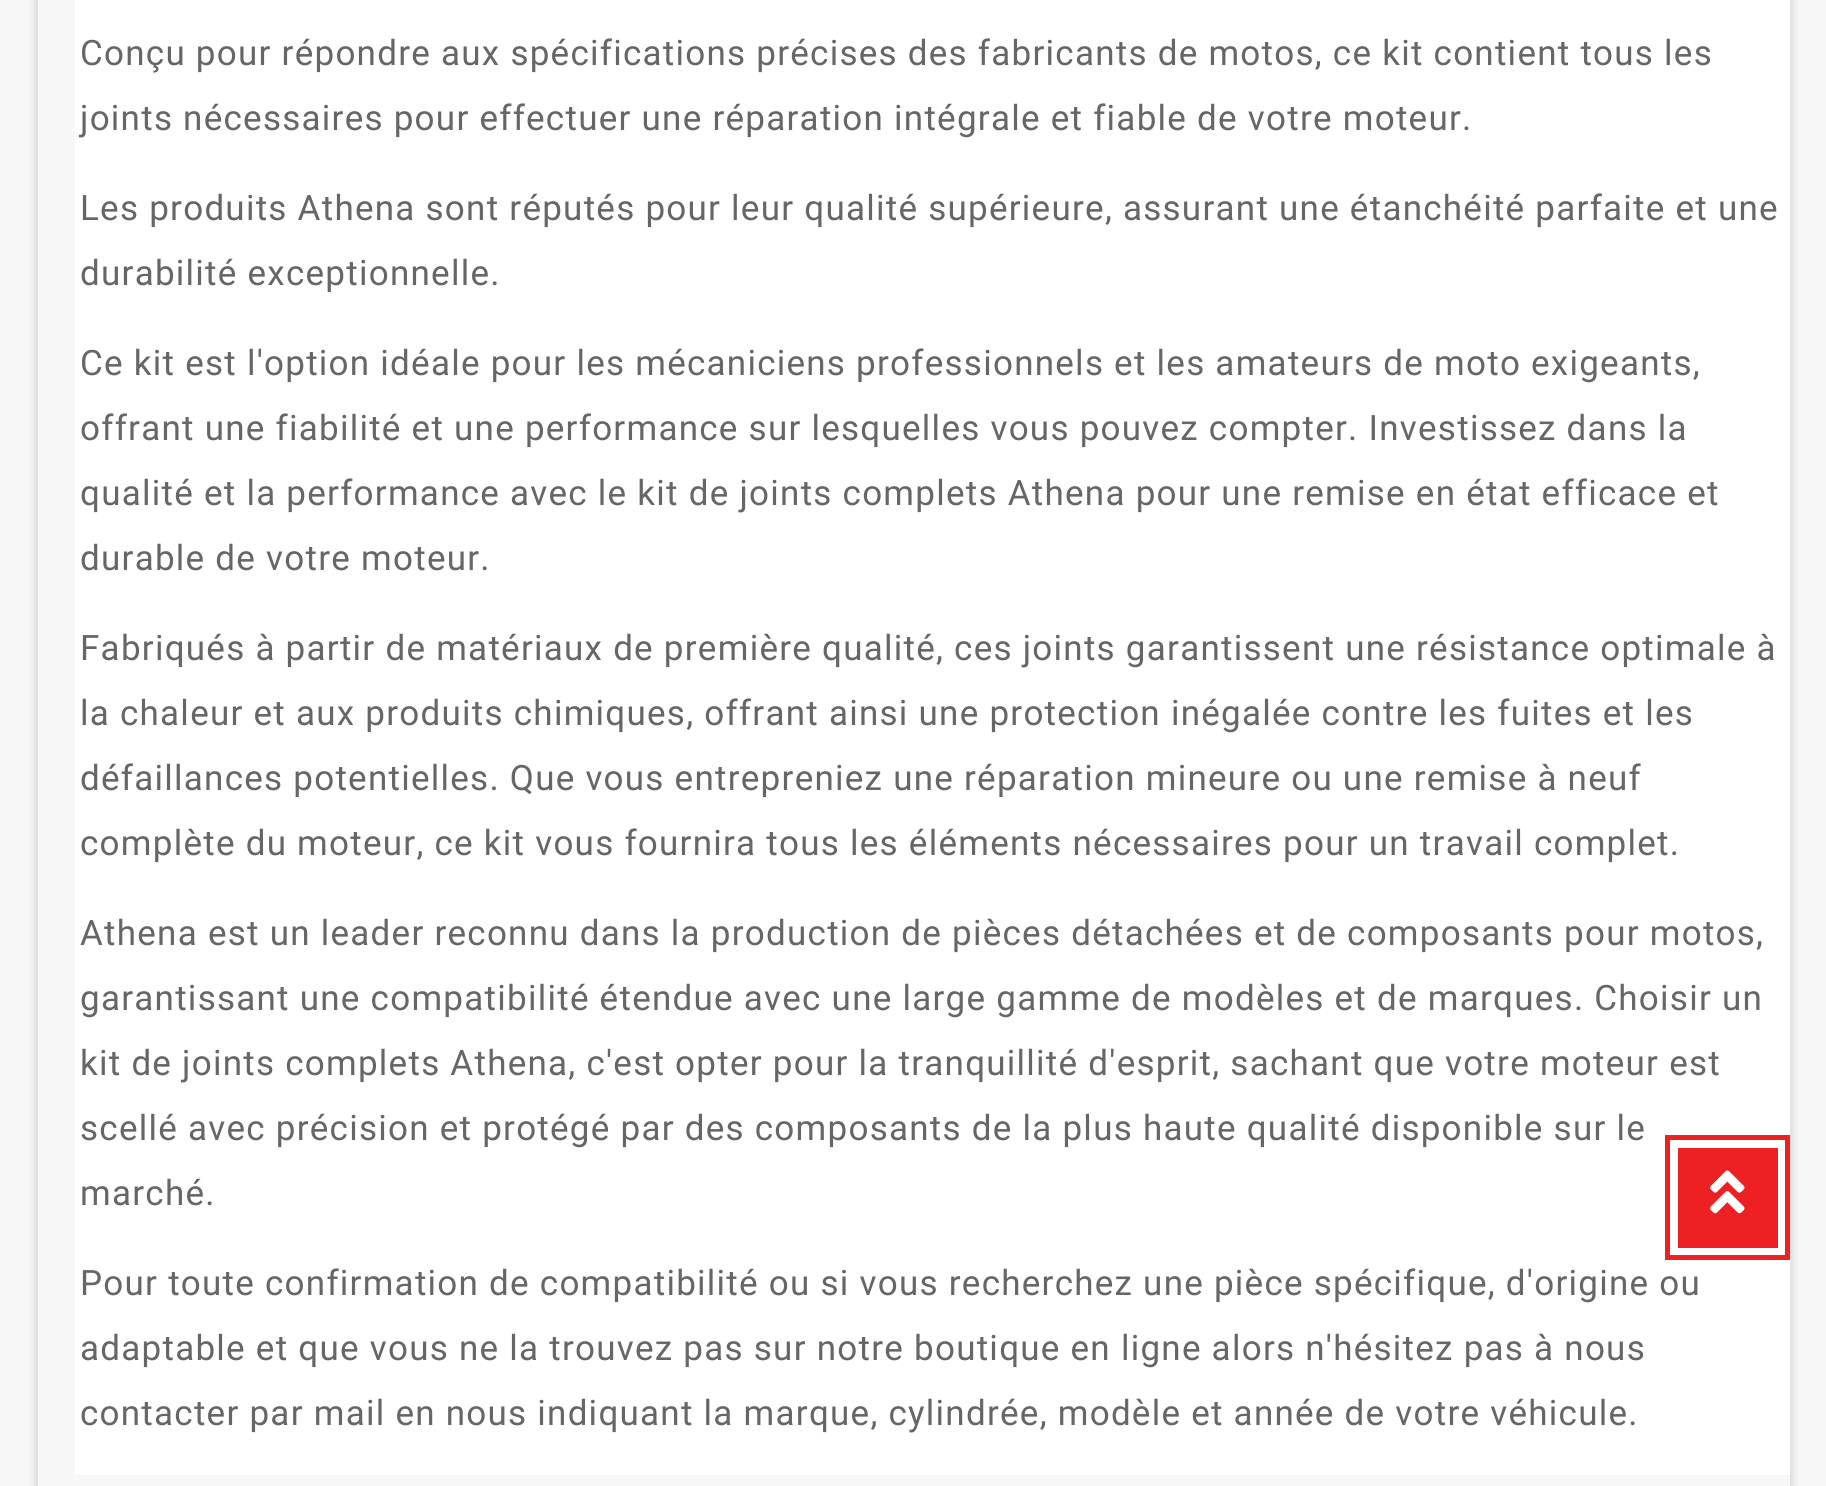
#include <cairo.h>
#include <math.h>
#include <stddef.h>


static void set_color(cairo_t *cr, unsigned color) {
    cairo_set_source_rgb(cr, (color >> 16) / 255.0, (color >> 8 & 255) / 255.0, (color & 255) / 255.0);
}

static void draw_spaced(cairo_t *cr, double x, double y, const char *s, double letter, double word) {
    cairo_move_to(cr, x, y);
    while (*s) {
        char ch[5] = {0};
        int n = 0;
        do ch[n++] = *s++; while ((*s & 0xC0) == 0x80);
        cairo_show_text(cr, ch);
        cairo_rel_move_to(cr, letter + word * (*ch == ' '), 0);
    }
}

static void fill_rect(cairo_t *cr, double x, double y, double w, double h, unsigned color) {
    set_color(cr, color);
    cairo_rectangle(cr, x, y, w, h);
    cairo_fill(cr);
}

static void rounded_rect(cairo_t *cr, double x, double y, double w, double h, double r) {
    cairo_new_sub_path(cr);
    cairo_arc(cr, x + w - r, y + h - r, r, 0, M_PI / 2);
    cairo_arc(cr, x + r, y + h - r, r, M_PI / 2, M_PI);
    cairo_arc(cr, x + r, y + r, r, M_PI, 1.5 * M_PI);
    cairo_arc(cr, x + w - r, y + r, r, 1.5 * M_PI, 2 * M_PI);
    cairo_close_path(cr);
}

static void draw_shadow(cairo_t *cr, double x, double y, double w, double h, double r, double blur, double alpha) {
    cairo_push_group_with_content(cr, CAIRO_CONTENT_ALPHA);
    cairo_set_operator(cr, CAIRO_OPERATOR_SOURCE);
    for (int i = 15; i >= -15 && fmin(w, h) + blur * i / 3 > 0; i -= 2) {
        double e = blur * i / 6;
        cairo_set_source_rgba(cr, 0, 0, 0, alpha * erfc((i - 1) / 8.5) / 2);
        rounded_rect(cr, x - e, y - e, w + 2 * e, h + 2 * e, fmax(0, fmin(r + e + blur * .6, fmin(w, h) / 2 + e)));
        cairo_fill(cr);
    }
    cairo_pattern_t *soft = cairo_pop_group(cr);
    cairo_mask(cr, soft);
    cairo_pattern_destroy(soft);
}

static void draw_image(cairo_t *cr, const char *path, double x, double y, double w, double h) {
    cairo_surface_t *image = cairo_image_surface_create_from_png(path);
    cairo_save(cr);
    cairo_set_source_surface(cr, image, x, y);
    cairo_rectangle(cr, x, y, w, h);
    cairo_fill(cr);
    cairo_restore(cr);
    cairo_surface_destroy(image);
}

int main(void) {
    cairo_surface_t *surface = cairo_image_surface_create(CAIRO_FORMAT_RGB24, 1826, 1486);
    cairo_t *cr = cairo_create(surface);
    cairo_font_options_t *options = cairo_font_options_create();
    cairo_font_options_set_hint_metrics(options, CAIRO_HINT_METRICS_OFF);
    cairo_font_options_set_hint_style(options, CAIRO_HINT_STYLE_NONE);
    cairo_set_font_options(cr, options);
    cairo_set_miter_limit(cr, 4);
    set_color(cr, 0xF7F7F7);
    cairo_paint(cr);
    cairo_save(cr);
    cairo_set_fill_rule(cr, CAIRO_FILL_RULE_EVEN_ODD);
    cairo_new_path(cr);
    cairo_move_to(cr, 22, 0);
    cairo_line_to(cr, 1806, 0);
    cairo_line_to(cr, 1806, 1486);
    cairo_line_to(cr, 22, 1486);
    cairo_close_path(cr);
    cairo_move_to(cr, 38, -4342);
    cairo_line_to(cr, 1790, -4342);
    cairo_line_to(cr, 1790, 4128);
    cairo_line_to(cr, 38, 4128);
    cairo_close_path(cr);
    cairo_clip(cr);
    set_color(cr, 0x808080);
    draw_shadow(cr, 35, -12, 1758, 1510, 0, 4, 0.27);
    cairo_restore(cr);
    fill_rect(cr, 75, 0, 1715, 1475, 0xFFFFFF);
    cairo_select_font_face(cr, "Roboto", CAIRO_FONT_SLANT_NORMAL, CAIRO_FONT_WEIGHT_NORMAL);
    cairo_set_font_size(cr, 35);
    set_color(cr, 0x666666);
    draw_spaced(cr, 80, 65, "Conçu pour répondre aux spécifications précises des fabricants de motos, ce kit contient tous les", 1.25, 0);
    draw_spaced(cr, 80, 130, "joints nécessaires pour effectuer une réparation intégrale et fiable de votre moteur.", 1.25, 0);
    draw_spaced(cr, 80, 220, "Les produits Athena sont réputés pour leur qualité supérieure, assurant une étanchéité parfaite et une", 1.25, 0);
    draw_spaced(cr, 80, 285, "durabilité exceptionnelle.", 1.25, 0);
    draw_spaced(cr, 80, 375, "Ce kit est l'option idéale pour les mécaniciens professionnels et les amateurs de moto exigeants,", 1.25, 0);
    draw_spaced(cr, 80, 440, "offrant une fiabilité et une performance sur lesquelles vous pouvez compter. Investissez dans la", 1.25, 0);
    draw_spaced(cr, 80, 505, "qualité et la performance avec le kit de joints complets Athena pour une remise en état efficace et", 1.25, 0);
    draw_spaced(cr, 80, 570, "durable de votre moteur.", 1.25, 0);
    draw_spaced(cr, 80, 660, "Fabriqués à partir de matériaux de première qualité, ces joints garantissent une résistance optimale à", 1.25, 0);
    draw_spaced(cr, 80, 725, "la chaleur et aux produits chimiques, offrant ainsi une protection inégalée contre les fuites et les", 1.25, 0);
    draw_spaced(cr, 80, 790, "défaillances potentielles. Que vous entrepreniez une réparation mineure ou une remise à neuf", 1.25, 0);
    draw_spaced(cr, 80, 855, "complète du moteur, ce kit vous fournira tous les éléments nécessaires pour un travail complet.", 1.25, 0);
    draw_spaced(cr, 80, 945, "Athena est un leader reconnu dans la production de pièces détachées et de composants pour motos,", 1.25, 0);
    draw_spaced(cr, 80, 1010, "garantissant une compatibilité étendue avec une large gamme de modèles et de marques. Choisir un", 1.25, 0);
    draw_spaced(cr, 80, 1075, "kit de joints complets Athena, c'est opter pour la tranquillité d'esprit, sachant que votre moteur est", 1.25, 0);
    draw_spaced(cr, 80, 1140, "scellé avec précision et protégé par des composants de la plus haute qualité disponible sur le", 1.25, 0);
    draw_spaced(cr, 80, 1205, "marché.", 1.25, 0);
    draw_spaced(cr, 80, 1295, "Pour toute confirmation de compatibilité ou si vous recherchez une pièce spécifique, d'origine ou", 1.25, 0);
    draw_spaced(cr, 80, 1360, "adaptable et que vous ne la trouvez pas sur notre boutique en ligne alors n'hésitez pas à nous", 1.25, 0);
    draw_spaced(cr, 80, 1425, "contacter par mail en nous indiquant la marque, cylindrée, modèle et année de votre véhicule.", 1.25, 0);
    fill_rect(cr, 1678, 1148, 100, 100, 0xED2024);
    draw_image(cr, "assets/img1.png", 1710, 1170, 35, 44);
    cairo_rectangle(cr, 1667.5, 1137.5, 120, 120);
    cairo_set_line_width(cr, 5);
    cairo_stroke(cr);
    cairo_surface_write_to_png(surface, "output.png");
    cairo_font_options_destroy(options);
    cairo_destroy(cr);
    cairo_surface_destroy(surface);
    return 0;
}
